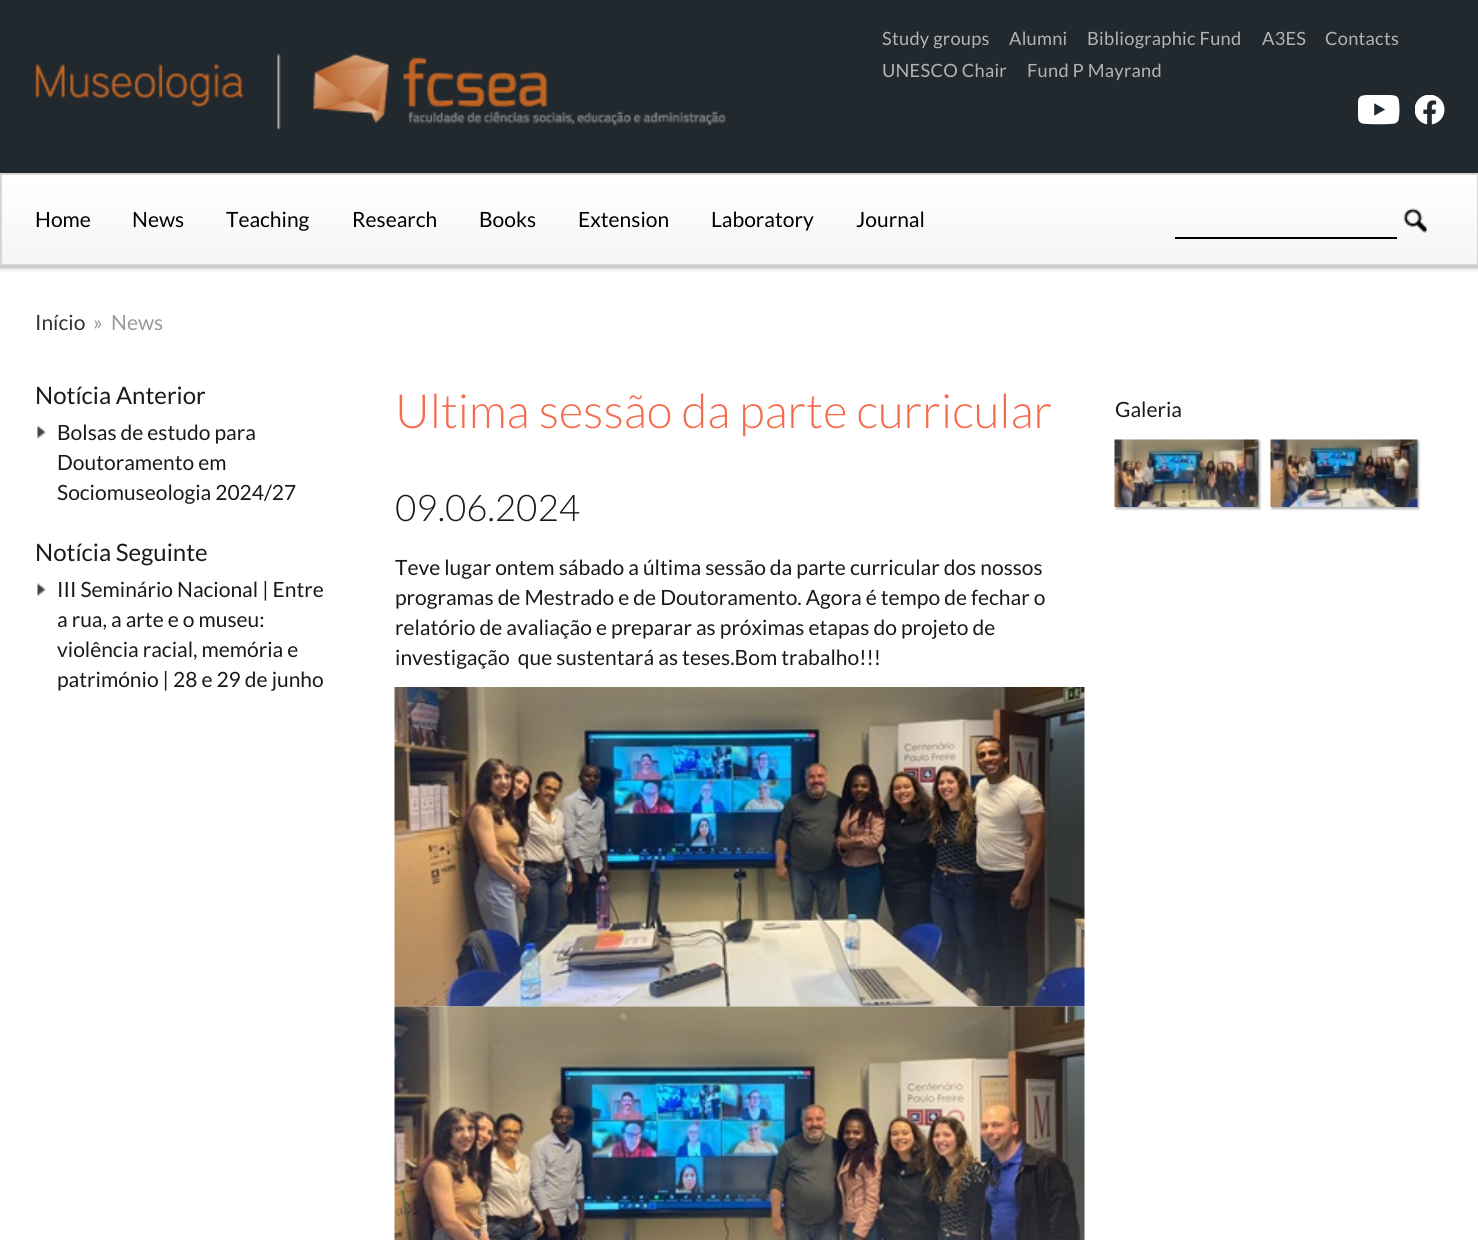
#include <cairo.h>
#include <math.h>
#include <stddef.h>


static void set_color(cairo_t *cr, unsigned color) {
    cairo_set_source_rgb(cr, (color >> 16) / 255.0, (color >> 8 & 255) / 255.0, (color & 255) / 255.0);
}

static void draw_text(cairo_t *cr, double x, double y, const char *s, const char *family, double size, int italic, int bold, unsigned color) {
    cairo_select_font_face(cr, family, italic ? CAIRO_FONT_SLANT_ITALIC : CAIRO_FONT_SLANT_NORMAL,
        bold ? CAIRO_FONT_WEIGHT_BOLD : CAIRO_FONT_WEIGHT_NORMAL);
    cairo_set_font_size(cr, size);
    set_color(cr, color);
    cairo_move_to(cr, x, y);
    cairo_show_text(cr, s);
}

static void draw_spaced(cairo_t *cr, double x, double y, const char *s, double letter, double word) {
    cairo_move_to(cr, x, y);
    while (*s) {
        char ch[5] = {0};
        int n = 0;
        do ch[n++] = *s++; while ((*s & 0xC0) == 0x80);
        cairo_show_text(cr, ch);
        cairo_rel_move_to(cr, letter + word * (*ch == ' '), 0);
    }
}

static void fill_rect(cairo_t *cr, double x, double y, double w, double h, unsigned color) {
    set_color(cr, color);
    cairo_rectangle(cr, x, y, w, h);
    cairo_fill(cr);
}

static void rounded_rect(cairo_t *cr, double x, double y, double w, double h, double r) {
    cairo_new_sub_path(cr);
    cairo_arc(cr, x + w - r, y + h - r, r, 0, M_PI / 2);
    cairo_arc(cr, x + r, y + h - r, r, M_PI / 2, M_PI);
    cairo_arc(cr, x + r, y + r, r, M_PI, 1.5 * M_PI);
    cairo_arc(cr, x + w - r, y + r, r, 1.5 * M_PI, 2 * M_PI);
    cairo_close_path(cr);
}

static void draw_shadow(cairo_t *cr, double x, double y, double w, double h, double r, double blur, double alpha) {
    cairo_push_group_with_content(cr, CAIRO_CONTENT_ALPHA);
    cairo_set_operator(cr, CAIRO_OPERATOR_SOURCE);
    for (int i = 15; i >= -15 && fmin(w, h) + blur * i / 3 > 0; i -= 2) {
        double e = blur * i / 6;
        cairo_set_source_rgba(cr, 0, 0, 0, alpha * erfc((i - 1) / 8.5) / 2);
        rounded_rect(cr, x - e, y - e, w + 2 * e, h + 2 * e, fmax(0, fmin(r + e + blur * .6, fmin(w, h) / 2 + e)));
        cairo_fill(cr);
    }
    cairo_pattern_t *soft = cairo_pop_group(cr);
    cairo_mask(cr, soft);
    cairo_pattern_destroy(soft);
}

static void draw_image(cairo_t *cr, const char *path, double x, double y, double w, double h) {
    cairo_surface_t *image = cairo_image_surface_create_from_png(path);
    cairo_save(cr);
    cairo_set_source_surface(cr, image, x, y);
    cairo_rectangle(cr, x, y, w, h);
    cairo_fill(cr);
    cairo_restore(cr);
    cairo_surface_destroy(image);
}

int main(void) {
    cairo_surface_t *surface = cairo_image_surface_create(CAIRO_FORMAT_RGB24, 1478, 1240);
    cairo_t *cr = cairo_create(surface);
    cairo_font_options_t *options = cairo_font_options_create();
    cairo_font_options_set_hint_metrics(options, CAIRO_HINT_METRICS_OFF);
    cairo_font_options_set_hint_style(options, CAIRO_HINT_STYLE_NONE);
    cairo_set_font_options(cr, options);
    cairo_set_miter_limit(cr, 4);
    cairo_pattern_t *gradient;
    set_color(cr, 0xFFFFFF);
    cairo_paint(cr);
    set_color(cr, 0x000000);
    draw_shadow(cr, 0, 174, 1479, 93, 0, 3, 0.4);
    fill_rect(cr, 0, 0, 1478, 173, 0x21292F);
    draw_image(cr, "assets/img1.png", 35, 53, 691, 77);
    cairo_select_font_face(cr, "Lato", CAIRO_FONT_SLANT_NORMAL, CAIRO_FONT_WEIGHT_NORMAL);
    cairo_set_font_size(cr, 18.25);
    set_color(cr, 0xB3B3B3);
    draw_spaced(cr, 882, 45, "Study groups", 0.25, 0);
    draw_spaced(cr, 1009, 45, "Alumni", 0.25, 0);
    draw_spaced(cr, 1087, 45, "Bibliographic Fund", 0.25, 0);
    draw_spaced(cr, 1262, 45, "A3ES", 0.25, 0);
    draw_spaced(cr, 1325, 45, "Contacts", 0.25, 0);
    draw_spaced(cr, 882, 77, "UNESCO Chair", 0.25, 0);
    draw_spaced(cr, 1027, 77, "Fund P Mayrand", 0.25, 0);
    draw_image(cr, "assets/img2.png", 1358, 95, 42, 30);
    draw_image(cr, "assets/img3.png", 1415, 95, 30, 30);
    gradient = cairo_pattern_create_linear(740, 174, 740, 264);
    cairo_pattern_add_color_stop_rgba(gradient, 0, 1, 1, 1, 1);
    cairo_pattern_add_color_stop_rgba(gradient, 1, 0.961, 0.961, 0.961, 1);
    cairo_set_source(cr, gradient);
    cairo_pattern_destroy(gradient);
    cairo_rectangle(cr, 2, 175, 1475, 89);
    cairo_fill(cr);
    cairo_rectangle(cr, 1, 174, 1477, 91);
    set_color(cr, 0xD6D6D6);
    cairo_stroke(cr);
    draw_text(cr, 35, 227, "Home", "Lato", 21, 0, 0, 0x000000);
    draw_text(cr, 132, 227, "News", "Lato", 21, 0, 0, 0x000000);
    draw_text(cr, 226, 227, "Teaching", "Lato", 21, 0, 0, 0x000000);
    draw_text(cr, 352, 227, "Research", "Lato", 21, 0, 0, 0x000000);
    draw_text(cr, 479, 227, "Books", "Lato", 21, 0, 0, 0x000000);
    draw_text(cr, 578, 227, "Extension", "Lato", 21, 0, 0, 0x000000);
    draw_text(cr, 711, 227, "Laboratory", "Lato", 21, 0, 0, 0x000000);
    draw_text(cr, 856, 227, "Journal", "Lato", 21, 0, 0, 0x000000);
    draw_image(cr, "assets/img4.png", 1403, 208, 24, 25);
    fill_rect(cr, 1175, 237, 222, 2, 0x000000);
    draw_text(cr, 35, 330, "Início", "Lato", 21, 0, 0, 0x333333);
    draw_text(cr, 93, 330, "»", "Lato", 21, 0, 0, 0x999999);
    draw_text(cr, 111, 330, "News", "Lato", 21, 0, 0, 0x999999);
    draw_text(cr, 35, 404, "Notícia Anterior", "Lato", 24, 0, 0, 0x1A1A1A);
    draw_image(cr, "assets/img5.png", 37, 425, 9, 14);
    draw_text(cr, 57, 440, "Bolsas de estudo para", "Lato", 21, 0, 0, 0x1A1A1A);
    draw_text(cr, 57, 470, "Doutoramento em", "Lato", 21, 0, 0, 0x1A1A1A);
    draw_text(cr, 57, 500, "Sociomuseologia 2024/27", "Lato", 21, 0, 0, 0x1A1A1A);
    draw_text(cr, 35, 561, "Notícia Seguinte", "Lato", 24, 0, 0, 0x1A1A1A);
    draw_image(cr, "assets/img6.png", 37, 583, 9, 13);
    draw_text(cr, 57, 597, "III Seminário Nacional | Entre", "Lato", 21, 0, 0, 0x1A1A1A);
    draw_text(cr, 57, 627, "a rua, a arte e o museu:", "Lato", 21, 0, 0, 0x1A1A1A);
    draw_text(cr, 57, 657, "violência racial, memória e", "Lato", 21, 0, 0, 0x1A1A1A);
    draw_text(cr, 57, 687, "património | 28 e 29 de junho", "Lato", 21, 0, 0, 0x1A1A1A);
    draw_text(cr, 395, 428, "Ultima sessão da parte curricular", "Lato Light", 47.25, 0, 0, 0xF46C4D);
    draw_text(cr, 395, 521, "09.06.2024", "Lato Light", 36.75, 0, 0, 0x1A1A1A);
    draw_text(cr, 395, 575, "Teve lugar ontem sábado a última sessão da parte curricular dos nossos", "Lato", 21, 0, 0, 0x1A1A1A);
    draw_text(cr, 395, 605, "programas de Mestrado e de Doutoramento. Agora é tempo de fechar o", "Lato", 21, 0, 0, 0x1A1A1A);
    draw_text(cr, 395, 635, "relatório de avaliação e preparar as próximas etapas do projeto de", "Lato", 21, 0, 0, 0x1A1A1A);
    draw_text(cr, 395, 665, "investigação  que sustentará as teses.Bom trabalho!!!", "Lato", 21, 0, 0, 0x1A1A1A);
    draw_image(cr, "assets/img7.png", 394, 687, 691, 320);
    draw_image(cr, "assets/img8.png", 394, 1006, 691, 234);
    draw_text(cr, 1115, 417, "Galeria", "Lato", 21, 0, 0, 0x1A1A1A);
    set_color(cr, 0x000000);
    draw_shadow(cr, 1116, 441, 144, 68, 0, 1, 0.3);
    draw_image(cr, "assets/img9.png", 1114, 439, 145, 68);
    draw_shadow(cr, 1272, 441, 147, 68, 0, 1, 0.3);
    draw_image(cr, "assets/img10.png", 1270, 439, 148, 68);
    cairo_surface_write_to_png(surface, "output.png");
    cairo_font_options_destroy(options);
    cairo_destroy(cr);
    cairo_surface_destroy(surface);
    return 0;
}
